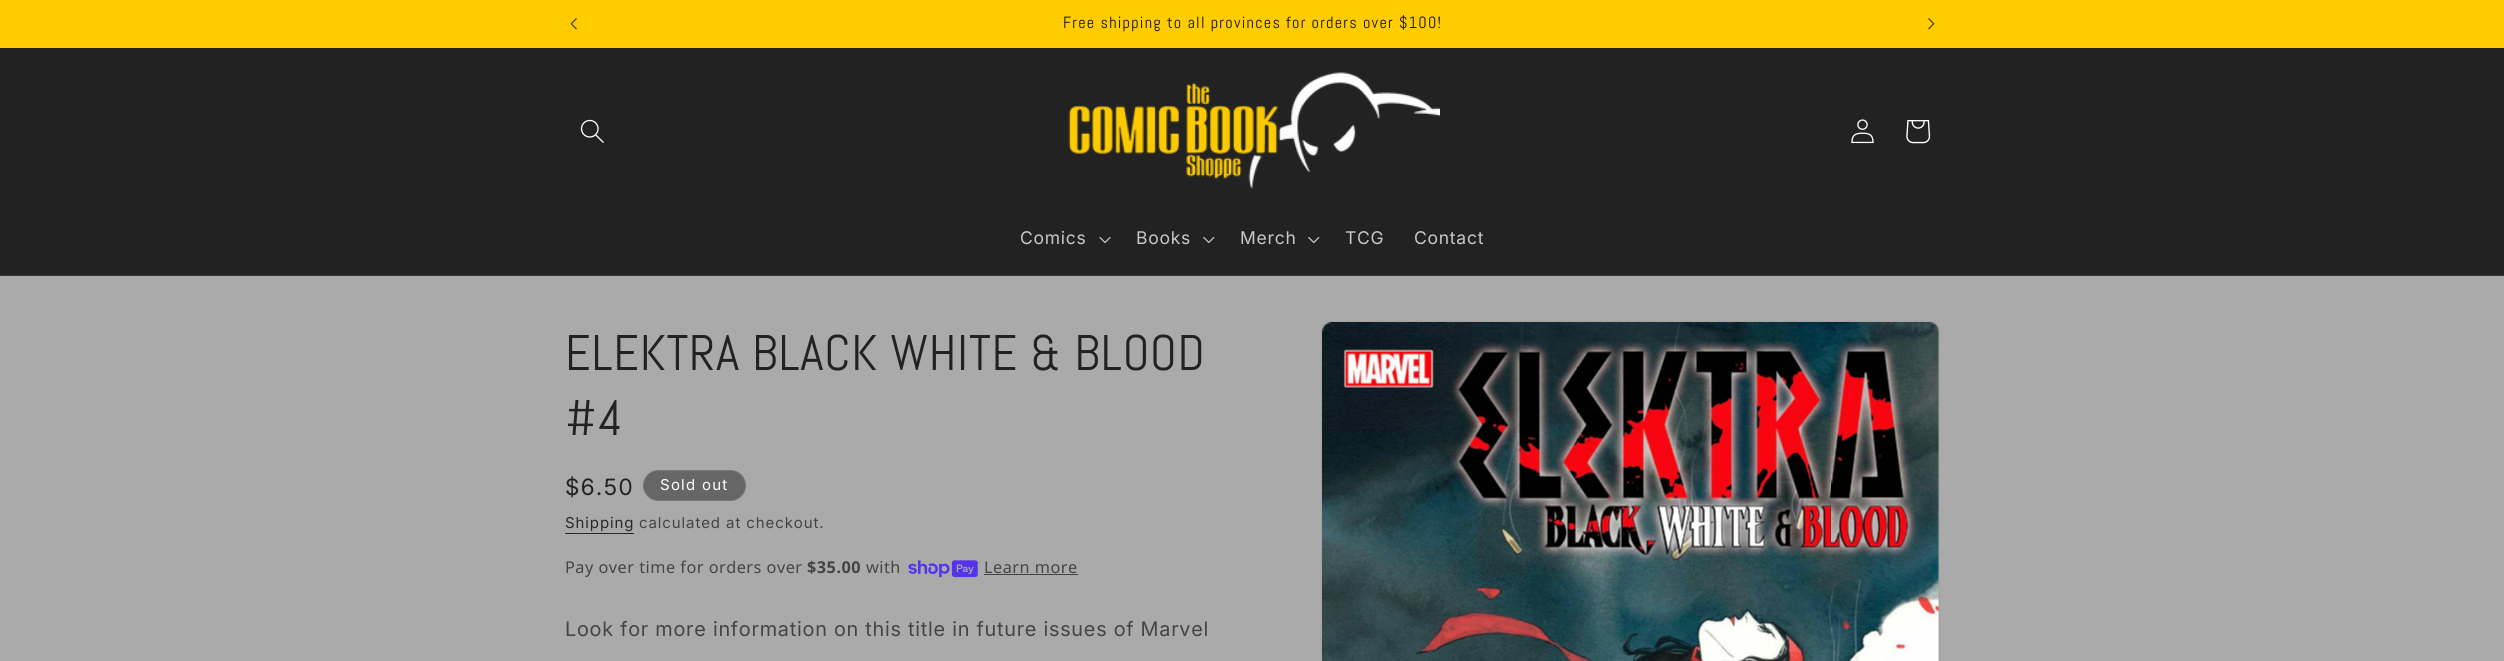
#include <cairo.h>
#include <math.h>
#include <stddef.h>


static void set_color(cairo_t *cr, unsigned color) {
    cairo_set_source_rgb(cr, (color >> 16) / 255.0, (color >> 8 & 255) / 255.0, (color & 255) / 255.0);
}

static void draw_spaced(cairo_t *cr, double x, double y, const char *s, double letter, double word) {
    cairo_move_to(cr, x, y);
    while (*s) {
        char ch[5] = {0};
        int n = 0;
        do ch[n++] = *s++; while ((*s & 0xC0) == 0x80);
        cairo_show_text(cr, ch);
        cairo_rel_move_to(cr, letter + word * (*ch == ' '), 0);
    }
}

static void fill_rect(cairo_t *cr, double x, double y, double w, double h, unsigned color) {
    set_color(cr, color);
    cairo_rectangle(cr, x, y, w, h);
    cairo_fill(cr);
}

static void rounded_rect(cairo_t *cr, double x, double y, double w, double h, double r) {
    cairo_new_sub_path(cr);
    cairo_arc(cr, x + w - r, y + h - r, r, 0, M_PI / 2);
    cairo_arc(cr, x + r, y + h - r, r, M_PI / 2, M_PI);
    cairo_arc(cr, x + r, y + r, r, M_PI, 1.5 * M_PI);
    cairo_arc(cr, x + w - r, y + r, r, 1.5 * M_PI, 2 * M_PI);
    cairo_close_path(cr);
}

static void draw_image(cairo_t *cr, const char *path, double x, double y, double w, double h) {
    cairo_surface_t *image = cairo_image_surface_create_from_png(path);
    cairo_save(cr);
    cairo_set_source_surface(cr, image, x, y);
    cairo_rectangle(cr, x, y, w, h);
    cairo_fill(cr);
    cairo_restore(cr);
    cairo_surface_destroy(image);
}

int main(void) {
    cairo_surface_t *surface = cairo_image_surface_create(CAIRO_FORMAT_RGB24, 2504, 661);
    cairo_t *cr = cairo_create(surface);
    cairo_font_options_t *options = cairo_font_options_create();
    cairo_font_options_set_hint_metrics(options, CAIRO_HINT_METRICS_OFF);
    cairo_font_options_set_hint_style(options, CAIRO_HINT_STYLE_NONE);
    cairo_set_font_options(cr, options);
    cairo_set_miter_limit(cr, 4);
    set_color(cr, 0xAAAAAA);
    cairo_paint(cr);
    fill_rect(cr, 0, 0, 2504, 48, 0xFFCC00);
    draw_image(cr, "assets/img1.png", 570, 18, 7, 12);
    cairo_select_font_face(cr, "Abel", CAIRO_FONT_SLANT_NORMAL, CAIRO_FONT_WEIGHT_NORMAL);
    cairo_set_font_size(cr, 16.25);
    set_color(cr, 0x111111);
    draw_spaced(cr, 1063, 28, "Free shipping to all provinces for orders over $100!", 1.25, 0);
    draw_image(cr, "assets/img2.png", 1928, 18, 7, 12);
    fill_rect(cr, 0, 48, 2504, 227, 0x222222);
    fill_rect(cr, 0, 275, 2504, 1, 0x343434);
    draw_image(cr, "assets/img3.png", 580, 119, 24, 24);
    draw_image(cr, "assets/img4.png", 1068, 72, 372, 117);
    draw_image(cr, "assets/img5.png", 1851, 119, 23, 25);
    draw_image(cr, "assets/img6.png", 1906, 120, 25, 24);
    cairo_select_font_face(cr, "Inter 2", CAIRO_FONT_SLANT_NORMAL, CAIRO_FONT_WEIGHT_NORMAL);
    cairo_set_font_size(cr, 17.5);
    set_color(cr, 0xC8C8C8);
    draw_spaced(cr, 1020, 244, "Comics", 0.75, 0);
    draw_image(cr, "assets/img7.png", 1099, 237, 12, 6);
    draw_spaced(cr, 1136, 244, "Books", 0.75, 0);
    draw_image(cr, "assets/img8.png", 1203, 236, 12, 8);
    draw_spaced(cr, 1240, 244, "Merch", 0.75, 0);
    draw_image(cr, "assets/img8.png", 1308, 236, 12, 8);
    draw_spaced(cr, 1345, 244, "TCG", 0.75, 0);
    draw_spaced(cr, 1414, 244, "Contact", 0.75, 0);
    cairo_select_font_face(cr, "Abel", CAIRO_FONT_SLANT_NORMAL, CAIRO_FONT_WEIGHT_NORMAL);
    cairo_set_font_size(cr, 50);
    set_color(cr, 0x222222);
    draw_spaced(cr, 565, 370, "ELEKTRA BLACK WHITE & BLOOD", 0.75, 0);
    draw_spaced(cr, 565, 435, "#4", 0.75, 0);
    cairo_select_font_face(cr, "Inter", CAIRO_FONT_SLANT_NORMAL, CAIRO_FONT_WEIGHT_NORMAL);
    cairo_set_font_size(cr, 22.5);
    draw_spaced(cr, 565, 495, "$6.50", 1.5, 0);
    set_color(cr, 0x666666);
    rounded_rect(cr, 643, 470, 103, 31, 15.5);
    cairo_fill(cr);
    rounded_rect(cr, 643.5, 470.5, 102, 30, 15);
    cairo_set_source_rgba(cr, 1, 1, 1, 0.1);
    cairo_set_line_width(cr, 1);
    cairo_stroke(cr);
    cairo_select_font_face(cr, "Inter 2", CAIRO_FONT_SLANT_NORMAL, CAIRO_FONT_WEIGHT_NORMAL);
    cairo_set_font_size(cr, 15);
    set_color(cr, 0xFFFFFF);
    draw_spaced(cr, 660, 490, "Sold out", 1.25, 0);
    set_color(cr, 0x282828);
    draw_spaced(cr, 565, 528, "Shipping", 0.9, 0);
    fill_rect(cr, 565, 533, 69, 1, 0x282828);
    set_color(cr, 0x444444);
    draw_spaced(cr, 639, 528, "calculated at checkout.", 0.9, 0);
    cairo_select_font_face(cr, "Noto Sans", CAIRO_FONT_SLANT_NORMAL, CAIRO_FONT_WEIGHT_NORMAL);
    cairo_set_font_size(cr, 16.25);
    draw_spaced(cr, 565, 573, "Pay over time for orders over", 0.5, 0);
    cairo_select_font_face(cr, "Noto Sans", CAIRO_FONT_SLANT_NORMAL, CAIRO_FONT_WEIGHT_BOLD);
    draw_spaced(cr, 807, 573, "$35.00", 0.5, 0);
    cairo_select_font_face(cr, "Noto Sans", CAIRO_FONT_SLANT_NORMAL, CAIRO_FONT_WEIGHT_NORMAL);
    draw_spaced(cr, 866, 573, "with", 0.5, 0);
    draw_image(cr, "assets/img9.png", 908, 560, 70, 18);
    draw_spaced(cr, 984, 573, "Learn more", 0.5, 0);
    fill_rect(cr, 984, 574, 94, 1, 0x444444);
    cairo_select_font_face(cr, "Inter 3", CAIRO_FONT_SLANT_NORMAL, CAIRO_FONT_WEIGHT_NORMAL);
    cairo_set_font_size(cr, 20);
    draw_spaced(cr, 565, 636, "Look for more information on this title in future issues of Marvel", 0.75, 0);
    rounded_rect(cr, 1321.5, 321.5, 618, 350, 9.5);
    set_color(cr, 0xA3A3A3);
    cairo_stroke(cr);
    draw_image(cr, "assets/img10.png", 1322, 322, 617, 339);
    cairo_surface_write_to_png(surface, "output.png");
    cairo_font_options_destroy(options);
    cairo_destroy(cr);
    cairo_surface_destroy(surface);
    return 0;
}
